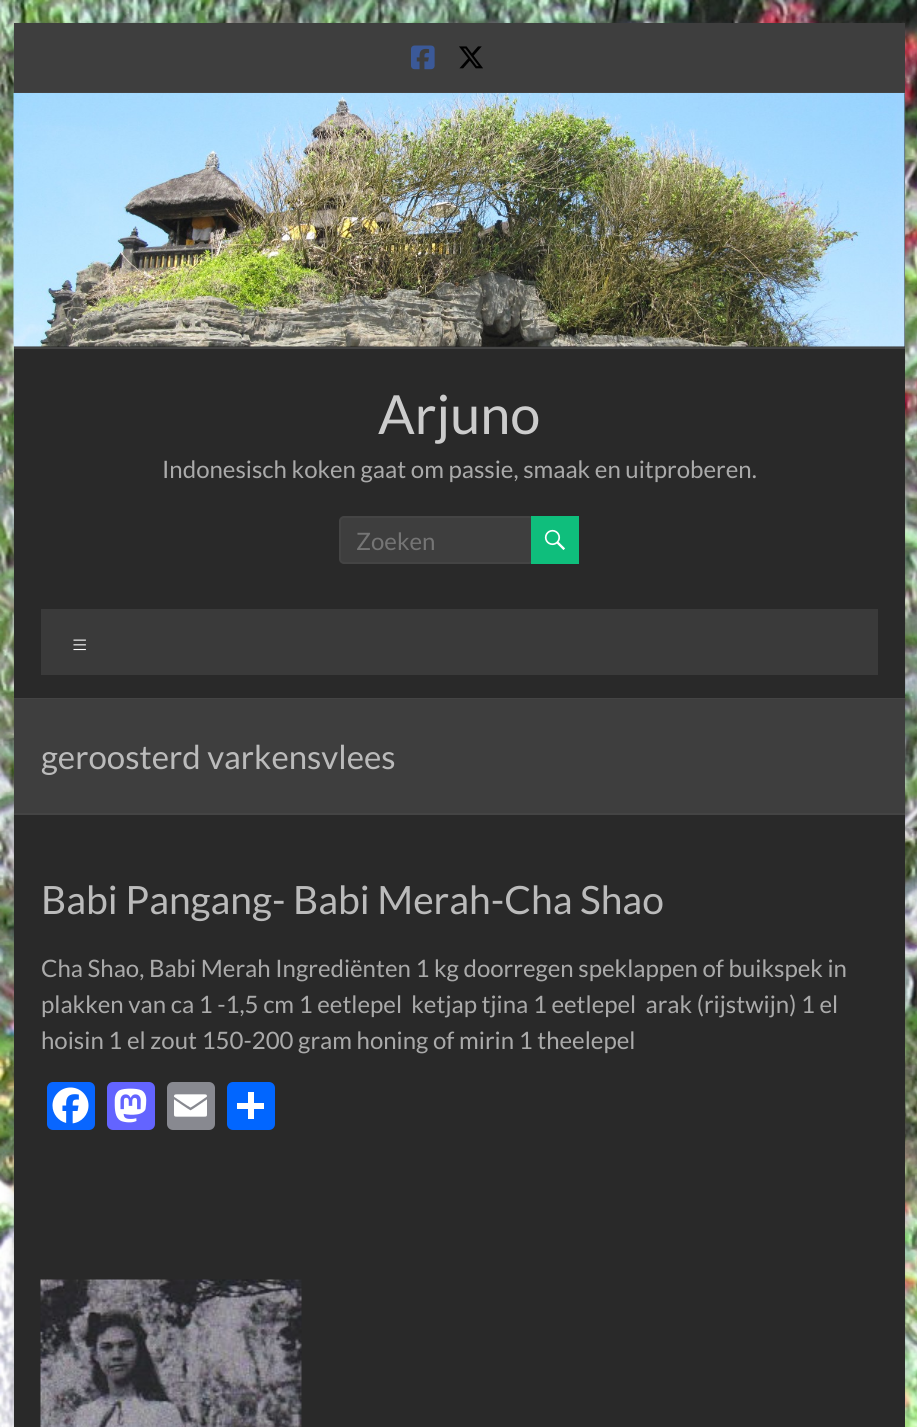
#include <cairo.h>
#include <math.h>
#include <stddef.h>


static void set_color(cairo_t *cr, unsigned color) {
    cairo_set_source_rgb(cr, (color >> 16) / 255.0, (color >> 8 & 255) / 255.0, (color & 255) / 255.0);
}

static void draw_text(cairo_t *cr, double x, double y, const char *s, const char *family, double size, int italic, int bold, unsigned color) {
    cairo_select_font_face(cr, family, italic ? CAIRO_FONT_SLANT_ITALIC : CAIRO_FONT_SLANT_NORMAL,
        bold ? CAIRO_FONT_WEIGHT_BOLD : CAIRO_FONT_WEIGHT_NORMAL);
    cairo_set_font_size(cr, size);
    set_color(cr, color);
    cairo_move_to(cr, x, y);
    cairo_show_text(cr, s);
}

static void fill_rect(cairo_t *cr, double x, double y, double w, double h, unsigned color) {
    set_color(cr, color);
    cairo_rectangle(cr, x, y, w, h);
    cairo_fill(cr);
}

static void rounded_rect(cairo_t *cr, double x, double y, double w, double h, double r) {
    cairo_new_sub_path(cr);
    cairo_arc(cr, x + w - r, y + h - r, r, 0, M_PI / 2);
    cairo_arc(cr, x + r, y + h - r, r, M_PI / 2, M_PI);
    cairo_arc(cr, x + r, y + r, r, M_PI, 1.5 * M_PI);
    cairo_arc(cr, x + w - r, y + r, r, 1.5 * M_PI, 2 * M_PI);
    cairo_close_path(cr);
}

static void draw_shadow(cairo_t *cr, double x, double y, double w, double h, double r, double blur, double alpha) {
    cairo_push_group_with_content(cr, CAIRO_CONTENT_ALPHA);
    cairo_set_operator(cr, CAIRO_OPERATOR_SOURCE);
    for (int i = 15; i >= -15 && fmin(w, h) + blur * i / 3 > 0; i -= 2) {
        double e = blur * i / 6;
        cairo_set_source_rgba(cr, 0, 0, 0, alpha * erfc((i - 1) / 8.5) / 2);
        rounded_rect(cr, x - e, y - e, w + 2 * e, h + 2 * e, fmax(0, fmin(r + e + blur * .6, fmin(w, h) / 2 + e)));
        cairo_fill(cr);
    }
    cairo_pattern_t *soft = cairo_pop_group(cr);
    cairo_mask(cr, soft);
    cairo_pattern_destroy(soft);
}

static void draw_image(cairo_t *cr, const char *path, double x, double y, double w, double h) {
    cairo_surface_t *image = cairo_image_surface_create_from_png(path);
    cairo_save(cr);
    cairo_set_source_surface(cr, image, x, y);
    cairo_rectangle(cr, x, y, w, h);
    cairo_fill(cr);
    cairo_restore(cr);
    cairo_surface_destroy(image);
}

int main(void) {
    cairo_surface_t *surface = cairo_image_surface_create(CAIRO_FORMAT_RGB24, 917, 1427);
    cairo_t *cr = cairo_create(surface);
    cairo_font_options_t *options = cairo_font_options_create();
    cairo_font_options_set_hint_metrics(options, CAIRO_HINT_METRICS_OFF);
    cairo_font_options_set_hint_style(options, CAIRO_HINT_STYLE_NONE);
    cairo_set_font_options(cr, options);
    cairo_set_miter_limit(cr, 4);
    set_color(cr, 0xFFFFFF);
    cairo_paint(cr);
    draw_image(cr, "assets/img1.png", 0, 0, 917, 1427);
    set_color(cr, 0x646464);
    draw_shadow(cr, 14, 26, 891, 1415, 0, 4.5, 0.3);
    fill_rect(cr, 14, 94, 891, 1333, 0x292929);
    fill_rect(cr, 14, 23, 891, 69, 0x3E3E3E);
    fill_rect(cr, 14, 92, 891, 2, 0x444444);
    draw_image(cr, "assets/img2.png", 411, 45, 24, 25);
    draw_image(cr, "assets/img3.png", 459, 46, 24, 23);
    draw_image(cr, "assets/img4.png", 13, 93, 892, 254);
    fill_rect(cr, 14, 347, 891, 2, 0x444444);
    fill_rect(cr, 14, 698, 891, 1, 0x444444);
    draw_text(cr, 378, 434, "Arjuno", "Lato", 54, 0, 0, 0xCCCCCC);
    draw_text(cr, 162, 478, "Indonesisch koken gaat om passie, smaak en uitproberen.", "Lato", 24, 0, 0, 0xAAAAAA);
    set_color(cr, 0x3E3E3E);
    rounded_rect(cr, 340, 517, 193, 46, 4);
    cairo_fill_preserve(cr);
    set_color(cr, 0x444444);
    cairo_stroke(cr);
    draw_text(cr, 356, 550, "Zoeken", "Lato", 24, 0, 0, 0x757575);
    fill_rect(cr, 531, 516, 48, 48, 0x0FBE7C);
    draw_image(cr, "assets/img5.png", 544, 529, 21, 21);
    fill_rect(cr, 41, 609, 837, 66, 0x3A3A3A);
    draw_text(cr, 71, 655, "≡", "Lato Light", 30, 0, 0, 0xFFFFFF);
    fill_rect(cr, 14, 699, 891, 114, 0x3E3E3E);
    fill_rect(cr, 14, 813, 891, 2, 0x444444);
    draw_text(cr, 41, 769, "geroosterd varkensvlees", "Lato", 33, 0, 0, 0xBBBBBB);
    draw_text(cr, 41, 914, "Babi Pangang- Babi Merah-Cha Shao", "Lato", 39, 0, 0, 0xBBBBBB);
    draw_text(cr, 41, 977, "Cha Shao, Babi Merah Ingrediënten 1 kg doorregen speklappen of buikspek in", "Lato", 24, 0, 0, 0xAAAAAA);
    draw_text(cr, 41, 1013, "plakken van ca 1 -1,5 cm 1 eetlepel  ketjap tjina 1 eetlepel  arak (rijstwijn) 1 el", "Lato", 24, 0, 0, 0xAAAAAA);
    draw_text(cr, 41, 1049, "hoisin 1 el zout 150-200 gram honing of mirin 1 theelepel", "Lato", 24, 0, 0, 0xAAAAAA);
    set_color(cr, 0x0866FF);
    rounded_rect(cr, 47, 1082, 48, 48, 6);
    cairo_fill(cr);
    draw_image(cr, "assets/img6.png", 52, 1087, 37, 37);
    set_color(cr, 0x6364FF);
    rounded_rect(cr, 107, 1082, 48, 48, 6);
    cairo_fill(cr);
    draw_image(cr, "assets/img7.png", 114, 1088, 33, 35);
    set_color(cr, 0x888990);
    rounded_rect(cr, 167, 1082, 48, 48, 6);
    cairo_fill(cr);
    draw_image(cr, "assets/img8.png", 174, 1094, 33, 23);
    set_color(cr, 0x0166FF);
    rounded_rect(cr, 227, 1082, 48, 48, 6);
    cairo_fill(cr);
    fill_rect(cr, 248, 1092, 6, 27, 0xFFFFFF);
    fill_rect(cr, 237, 1103, 27, 6, 0xFFFFFF);
    draw_image(cr, "assets/img9.png", 40, 1279, 262, 148);
    cairo_surface_write_to_png(surface, "output.png");
    cairo_font_options_destroy(options);
    cairo_destroy(cr);
    cairo_surface_destroy(surface);
    return 0;
}
